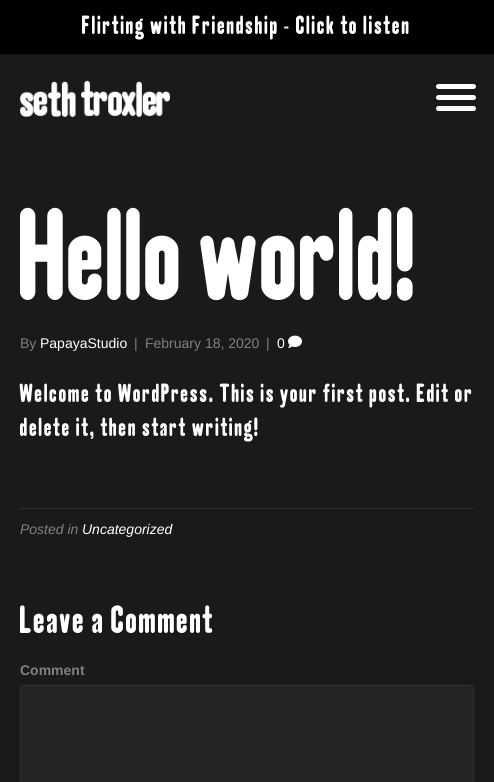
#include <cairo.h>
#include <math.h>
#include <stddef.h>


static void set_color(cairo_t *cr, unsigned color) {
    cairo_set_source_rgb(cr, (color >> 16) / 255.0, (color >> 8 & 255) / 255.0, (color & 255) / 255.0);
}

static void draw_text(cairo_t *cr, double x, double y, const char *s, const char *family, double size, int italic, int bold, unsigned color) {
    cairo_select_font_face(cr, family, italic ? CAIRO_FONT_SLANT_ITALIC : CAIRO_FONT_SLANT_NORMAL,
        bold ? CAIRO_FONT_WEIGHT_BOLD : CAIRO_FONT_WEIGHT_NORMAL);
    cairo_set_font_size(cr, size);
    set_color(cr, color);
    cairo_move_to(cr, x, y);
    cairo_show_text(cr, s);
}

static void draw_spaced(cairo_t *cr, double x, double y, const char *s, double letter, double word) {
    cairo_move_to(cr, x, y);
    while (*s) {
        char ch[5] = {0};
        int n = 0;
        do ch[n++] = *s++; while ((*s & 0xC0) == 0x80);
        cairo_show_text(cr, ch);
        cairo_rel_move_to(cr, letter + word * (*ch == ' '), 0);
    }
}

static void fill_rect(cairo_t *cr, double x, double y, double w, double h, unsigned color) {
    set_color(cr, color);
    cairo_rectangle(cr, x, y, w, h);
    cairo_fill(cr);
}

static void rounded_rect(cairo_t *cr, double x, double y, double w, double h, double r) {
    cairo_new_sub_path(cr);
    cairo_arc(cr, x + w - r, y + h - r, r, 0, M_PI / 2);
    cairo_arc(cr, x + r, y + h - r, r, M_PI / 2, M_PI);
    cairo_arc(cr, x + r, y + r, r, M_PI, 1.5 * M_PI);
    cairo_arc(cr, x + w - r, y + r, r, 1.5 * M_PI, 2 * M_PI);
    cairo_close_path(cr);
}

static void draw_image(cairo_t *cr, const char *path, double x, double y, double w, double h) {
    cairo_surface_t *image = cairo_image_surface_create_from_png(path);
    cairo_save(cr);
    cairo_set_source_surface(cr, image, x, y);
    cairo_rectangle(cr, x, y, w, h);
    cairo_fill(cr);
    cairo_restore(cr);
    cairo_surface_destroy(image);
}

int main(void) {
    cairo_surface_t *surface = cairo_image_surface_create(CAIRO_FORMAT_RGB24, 494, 782);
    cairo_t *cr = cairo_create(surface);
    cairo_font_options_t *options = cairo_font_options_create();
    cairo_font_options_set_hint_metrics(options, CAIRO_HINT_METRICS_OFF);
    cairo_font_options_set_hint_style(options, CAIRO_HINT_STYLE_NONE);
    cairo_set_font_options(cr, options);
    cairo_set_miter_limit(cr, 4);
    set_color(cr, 0x1A1A1A);
    cairo_paint(cr);
    fill_rect(cr, 0, 0, 494, 54, 0x000000);
    cairo_select_font_face(cr, "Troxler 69", CAIRO_FONT_SLANT_NORMAL, CAIRO_FONT_WEIGHT_NORMAL);
    cairo_set_font_size(cr, 24);
    set_color(cr, 0xFFFFFF);
    draw_spaced(cr, 82, 34, "Flirting with Friendship - Click to listen", 2, 0);
    draw_image(cr, "assets/img1.png", 20, 80, 150, 37);
    rounded_rect(cr, 436, 95, 40, 5, 2.5);
    cairo_fill(cr);
    rounded_rect(cr, 436, 84, 40, 5, 2.5);
    cairo_fill(cr);
    rounded_rect(cr, 436, 106, 40, 5, 2.5);
    cairo_fill(cr);
    cairo_set_font_size(cr, 120);
    draw_spaced(cr, 20, 300, "Hello world!", 2, 0);
    draw_text(cr, 20, 348, "By", "Liberation Sans", 14, 0, 0, 0x808080);
    draw_text(cr, 40, 348, "PapayaStudio", "Liberation Sans", 14, 0, 0, 0xFFFFFF);
    draw_text(cr, 134, 348, "|", "Liberation Sans", 14, 0, 0, 0x808080);
    draw_text(cr, 145, 348, "February 18, 2020", "Liberation Sans", 14, 0, 0, 0x808080);
    draw_text(cr, 266, 348, "|", "Liberation Sans", 14, 0, 0, 0x808080);
    draw_text(cr, 277, 348, "0", "Liberation Sans", 14, 0, 0, 0xFFFFFF);
    draw_image(cr, "assets/img2.png", 288, 335, 14, 13);
    cairo_select_font_face(cr, "Troxler 69", CAIRO_FONT_SLANT_NORMAL, CAIRO_FONT_WEIGHT_NORMAL);
    cairo_set_font_size(cr, 24);
    draw_spaced(cr, 20, 402, "Welcome to WordPress. This is your first post. Edit or", 2, 0);
    draw_spaced(cr, 20, 436, "delete it, then start writing!", 2, 0);
    fill_rect(cr, 20, 508, 454, 1, 0x313131);
    draw_text(cr, 20, 534, "Posted in", "Liberation Sans", 14, 1, 0, 0x808080);
    draw_text(cr, 82, 534, "Uncategorized", "Liberation Sans", 14, 1, 0, 0xFFFFFF);
    cairo_select_font_face(cr, "Troxler 69", CAIRO_FONT_SLANT_NORMAL, CAIRO_FONT_WEIGHT_NORMAL);
    cairo_set_font_size(cr, 36);
    draw_spaced(cr, 20, 633, "Leave a Comment", 2, 0);
    draw_text(cr, 20, 675, "Comment", "Liberation Sans", 14, 0, 1, 0x808080);
    set_color(cr, 0x242424);
    rounded_rect(cr, 21, 686, 452, 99, 3);
    cairo_fill(cr);
    rounded_rect(cr, 20.5, 685.5, 453, 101, 3.5);
    set_color(cr, 0x313131);
    cairo_set_line_width(cr, 1);
    cairo_stroke(cr);
    cairo_surface_write_to_png(surface, "output.png");
    cairo_font_options_destroy(options);
    cairo_destroy(cr);
    cairo_surface_destroy(surface);
    return 0;
}
